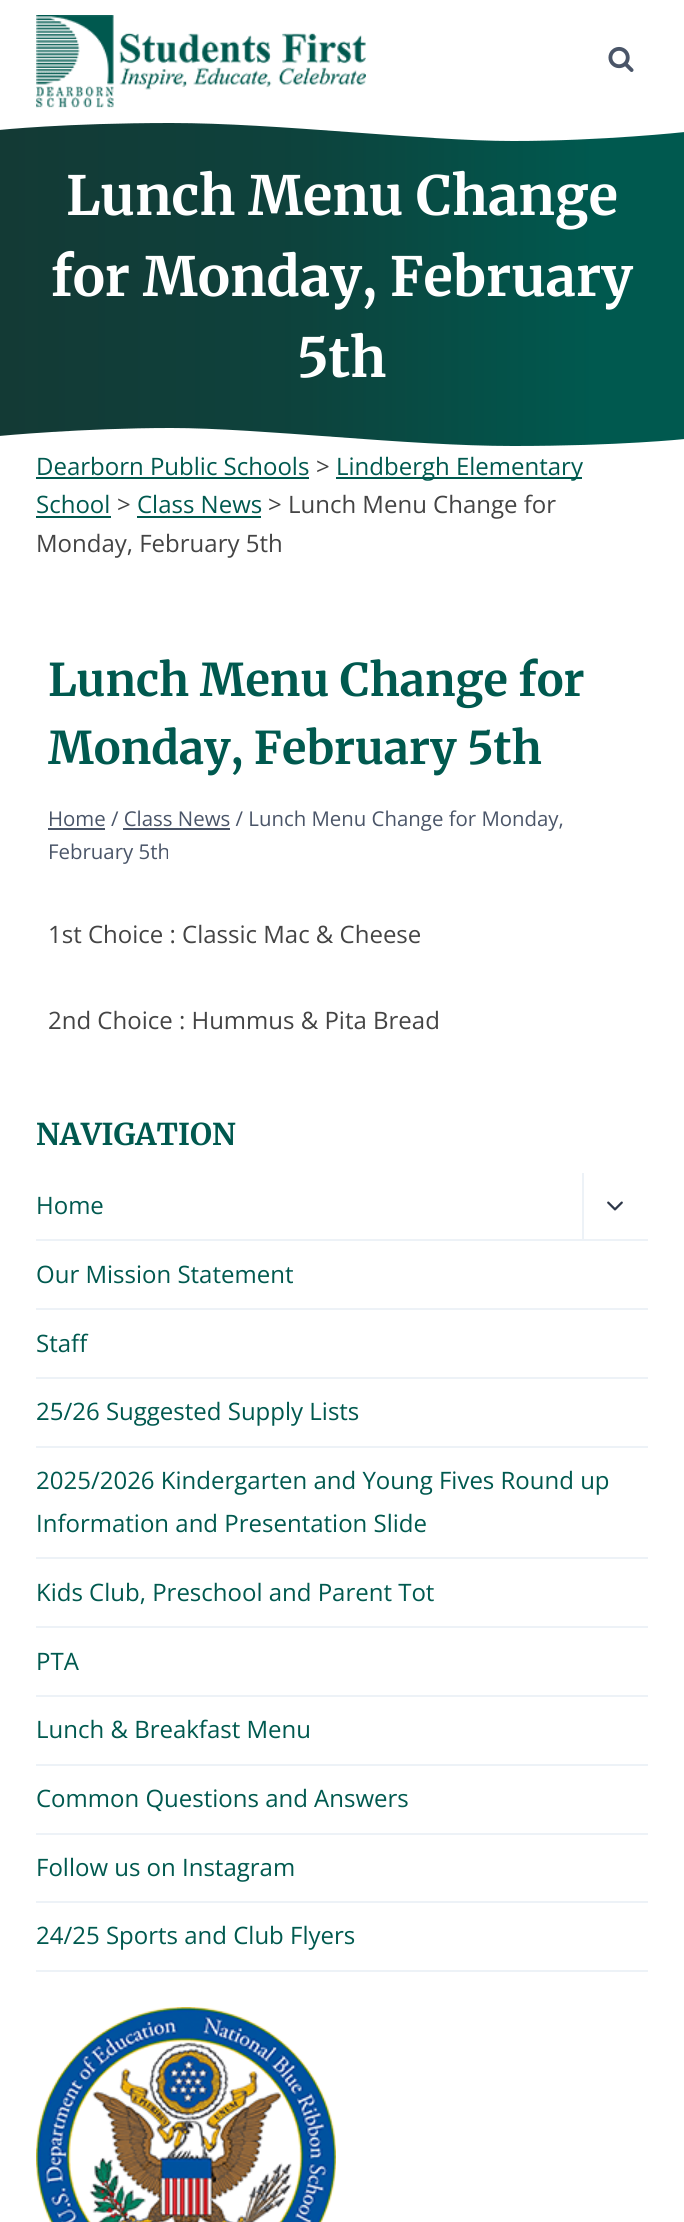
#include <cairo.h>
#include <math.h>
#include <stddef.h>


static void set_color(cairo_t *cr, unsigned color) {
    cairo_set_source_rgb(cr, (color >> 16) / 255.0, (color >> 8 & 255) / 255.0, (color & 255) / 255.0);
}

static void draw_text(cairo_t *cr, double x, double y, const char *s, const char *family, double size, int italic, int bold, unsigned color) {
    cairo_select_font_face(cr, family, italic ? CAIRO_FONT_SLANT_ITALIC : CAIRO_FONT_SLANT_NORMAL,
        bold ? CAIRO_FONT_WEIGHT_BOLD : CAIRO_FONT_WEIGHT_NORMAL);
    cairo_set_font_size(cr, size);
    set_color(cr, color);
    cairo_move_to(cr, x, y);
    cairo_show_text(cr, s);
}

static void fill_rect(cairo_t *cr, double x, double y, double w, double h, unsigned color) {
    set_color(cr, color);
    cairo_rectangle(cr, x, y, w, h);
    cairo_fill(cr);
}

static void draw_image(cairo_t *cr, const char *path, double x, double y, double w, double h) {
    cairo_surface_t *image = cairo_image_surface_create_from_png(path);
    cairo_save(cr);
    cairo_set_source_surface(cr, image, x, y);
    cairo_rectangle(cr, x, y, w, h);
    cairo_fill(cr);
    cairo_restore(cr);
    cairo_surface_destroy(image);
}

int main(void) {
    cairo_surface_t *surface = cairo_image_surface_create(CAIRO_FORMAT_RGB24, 684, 2222);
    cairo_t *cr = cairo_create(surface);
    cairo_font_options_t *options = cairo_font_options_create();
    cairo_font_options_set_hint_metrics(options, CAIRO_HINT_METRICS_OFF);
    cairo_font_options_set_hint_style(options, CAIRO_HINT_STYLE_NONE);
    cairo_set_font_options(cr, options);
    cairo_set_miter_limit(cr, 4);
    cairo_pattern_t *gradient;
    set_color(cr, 0xFFFFFF);
    cairo_paint(cr);
    draw_image(cr, "assets/img1.png", 36, 15, 330, 93);
    draw_image(cr, "assets/img2.png", 608, 46, 26, 26);
    gradient = cairo_pattern_create_linear(0, 285, 684, 285);
    cairo_pattern_add_color_stop_rgba(gradient, 0, 0.075, 0.227, 0.208, 1);
    cairo_pattern_add_color_stop_rgba(gradient, 0.18, 0.067, 0.239, 0.22, 1);
    cairo_pattern_add_color_stop_rgba(gradient, 0.45, 0.051, 0.263, 0.239, 1);
    cairo_pattern_add_color_stop_rgba(gradient, 0.87, 0, 0.349, 0.31, 1);
    cairo_set_source(cr, gradient);
    cairo_pattern_destroy(gradient);
    cairo_rectangle(cr, 0, 123, 684, 323);
    cairo_fill(cr);
    set_color(cr, 0xFFFFFF);
    cairo_new_path(cr);
    cairo_move_to(cr, 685, 132);
    cairo_curve_to(cr, 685, 132, 602, 141, 513, 141);
    cairo_curve_to(cr, 424, 141, 277, 123, 171, 123);
    cairo_curve_to(cr, 65, 123, -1, 130, -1, 130);
    cairo_line_to(cr, -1, 118);
    cairo_line_to(cr, 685, 118);
    cairo_close_path(cr);
    cairo_fill(cr);
    draw_text(cr, 66, 215, "Lunch Menu Change", "Merriweather Light", 54, 0, 0, 0xFFFFFF);
    draw_text(cr, 51, 296, "for Monday, February", "Merriweather Light", 54, 0, 0, 0xFFFFFF);
    draw_text(cr, 297, 377, "5th", "Merriweather Light", 54, 0, 0, 0xFFFFFF);
    cairo_new_path(cr);
    cairo_move_to(cr, -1, 436);
    cairo_curve_to(cr, -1, 436, 82, 428, 171, 428);
    cairo_curve_to(cr, 260, 428, 407, 446, 513, 446);
    cairo_curve_to(cr, 619, 446, 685, 439, 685, 439);
    cairo_line_to(cr, 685, 450);
    cairo_line_to(cr, -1, 450);
    cairo_close_path(cr);
    cairo_fill(cr);
    draw_text(cr, 36, 475, "Dearborn Public Schools", "Open Sans", 24, 0, 0, 0x00594F);
    fill_rect(cr, 36, 477, 273, 2, 0x00594F);
    draw_text(cr, 316, 475, ">", "Open Sans", 24, 0, 0, 0x444444);
    fill_rect(cr, 336, 477, 246, 2, 0x00594F);
    draw_text(cr, 336, 475, "Lindbergh Elementary", "Open Sans", 24, 0, 0, 0x00594F);
    draw_text(cr, 36, 513, "School", "Open Sans", 24, 0, 0, 0x00594F);
    fill_rect(cr, 36, 516, 75, 2, 0x00594F);
    draw_text(cr, 117, 513, ">", "Open Sans", 24, 0, 0, 0x444444);
    draw_text(cr, 137, 513, "Class News", "Open Sans", 24, 0, 0, 0x00594F);
    fill_rect(cr, 137, 516, 124, 2, 0x00594F);
    draw_text(cr, 268, 513, "> Lunch Menu Change for", "Open Sans", 24, 0, 0, 0x444444);
    draw_text(cr, 36, 552, "Monday, February 5th", "Open Sans", 24, 0, 0, 0x444444);
    draw_text(cr, 48, 696, "Lunch Menu Change for", "Merriweather Light", 45, 0, 0, 0x00594F);
    draw_text(cr, 48, 764, "Monday, February 5th", "Merriweather Light", 45, 0, 0, 0x00594F);
    fill_rect(cr, 48, 828, 57, 2, 0x4A5568);
    draw_text(cr, 48, 826, "Home / Class News / Lunch Menu Change for Monday,", "Open Sans", 20.4, 0, 0, 0x4A5568);
    fill_rect(cr, 123, 828, 107, 2, 0x4A5568);
    draw_text(cr, 48, 859, "February 5th", "Open Sans", 20.4, 0, 0, 0x4A5568);
    draw_text(cr, 48, 943, "1st Choice : Classic Mac & Cheese", "Open Sans", 24, 0, 0, 0x444444);
    draw_text(cr, 48, 1029, "2nd Choice : Hummus & Pita Bread", "Open Sans", 24, 0, 0, 0x444444);
    draw_text(cr, 36, 1145, "NAVIGATION", "Merriweather Light", 30, 0, 0, 0x00594F);
    fill_rect(cr, 36, 1239, 612, 2, 0xEDF2F7);
    draw_text(cr, 36, 1214, "Home", "Open Sans", 24, 0, 0, 0x00594F);
    fill_rect(cr, 582, 1173, 2, 68, 0xEDF2F7);
    draw_image(cr, "assets/img3.png", 607, 1201, 16, 10);
    fill_rect(cr, 36, 1308, 612, 2, 0xEDF2F7);
    draw_text(cr, 36, 1283, "Our Mission Statement", "Open Sans", 24, 0, 0, 0x00594F);
    fill_rect(cr, 36, 1377, 612, 2, 0xEDF2F7);
    draw_text(cr, 36, 1352, "Staff", "Open Sans", 24, 0, 0, 0x00594F);
    fill_rect(cr, 36, 1446, 612, 2, 0xEDF2F7);
    draw_text(cr, 36, 1420, "25/26 Suggested Supply Lists", "Open Sans", 24, 0, 0, 0x00594F);
    fill_rect(cr, 36, 1557, 612, 2, 0xEDF2F7);
    draw_text(cr, 36, 1489, "2025/2026 Kindergarten and Young Fives Round up", "Open Sans", 24, 0, 0, 0x00594F);
    draw_text(cr, 36, 1532, "Information and Presentation Slide", "Open Sans", 24, 0, 0, 0x00594F);
    fill_rect(cr, 36, 1626, 612, 2, 0xEDF2F7);
    draw_text(cr, 36, 1601, "Kids Club, Preschool and Parent Tot", "Open Sans", 24, 0, 0, 0x00594F);
    fill_rect(cr, 36, 1695, 612, 2, 0xEDF2F7);
    draw_text(cr, 36, 1670, "PTA", "Open Sans", 24, 0, 0, 0x00594F);
    fill_rect(cr, 36, 1764, 612, 2, 0xEDF2F7);
    draw_text(cr, 36, 1738, "Lunch & Breakfast Menu", "Open Sans", 24, 0, 0, 0x00594F);
    fill_rect(cr, 36, 1833, 612, 2, 0xEDF2F7);
    draw_text(cr, 36, 1807, "Common Questions and Answers", "Open Sans", 24, 0, 0, 0x00594F);
    fill_rect(cr, 36, 1901, 612, 2, 0xEDF2F7);
    draw_text(cr, 36, 1876, "Follow us on Instagram", "Open Sans", 24, 0, 0, 0x00594F);
    fill_rect(cr, 36, 1970, 612, 2, 0xEDF2F7);
    draw_text(cr, 36, 1944, "24/25 Sports and Club Flyers", "Open Sans", 24, 0, 0, 0x00594F);
    draw_image(cr, "assets/img4.png", 36, 2007, 300, 215);
    cairo_surface_write_to_png(surface, "output.png");
    cairo_font_options_destroy(options);
    cairo_destroy(cr);
    cairo_surface_destroy(surface);
    return 0;
}
